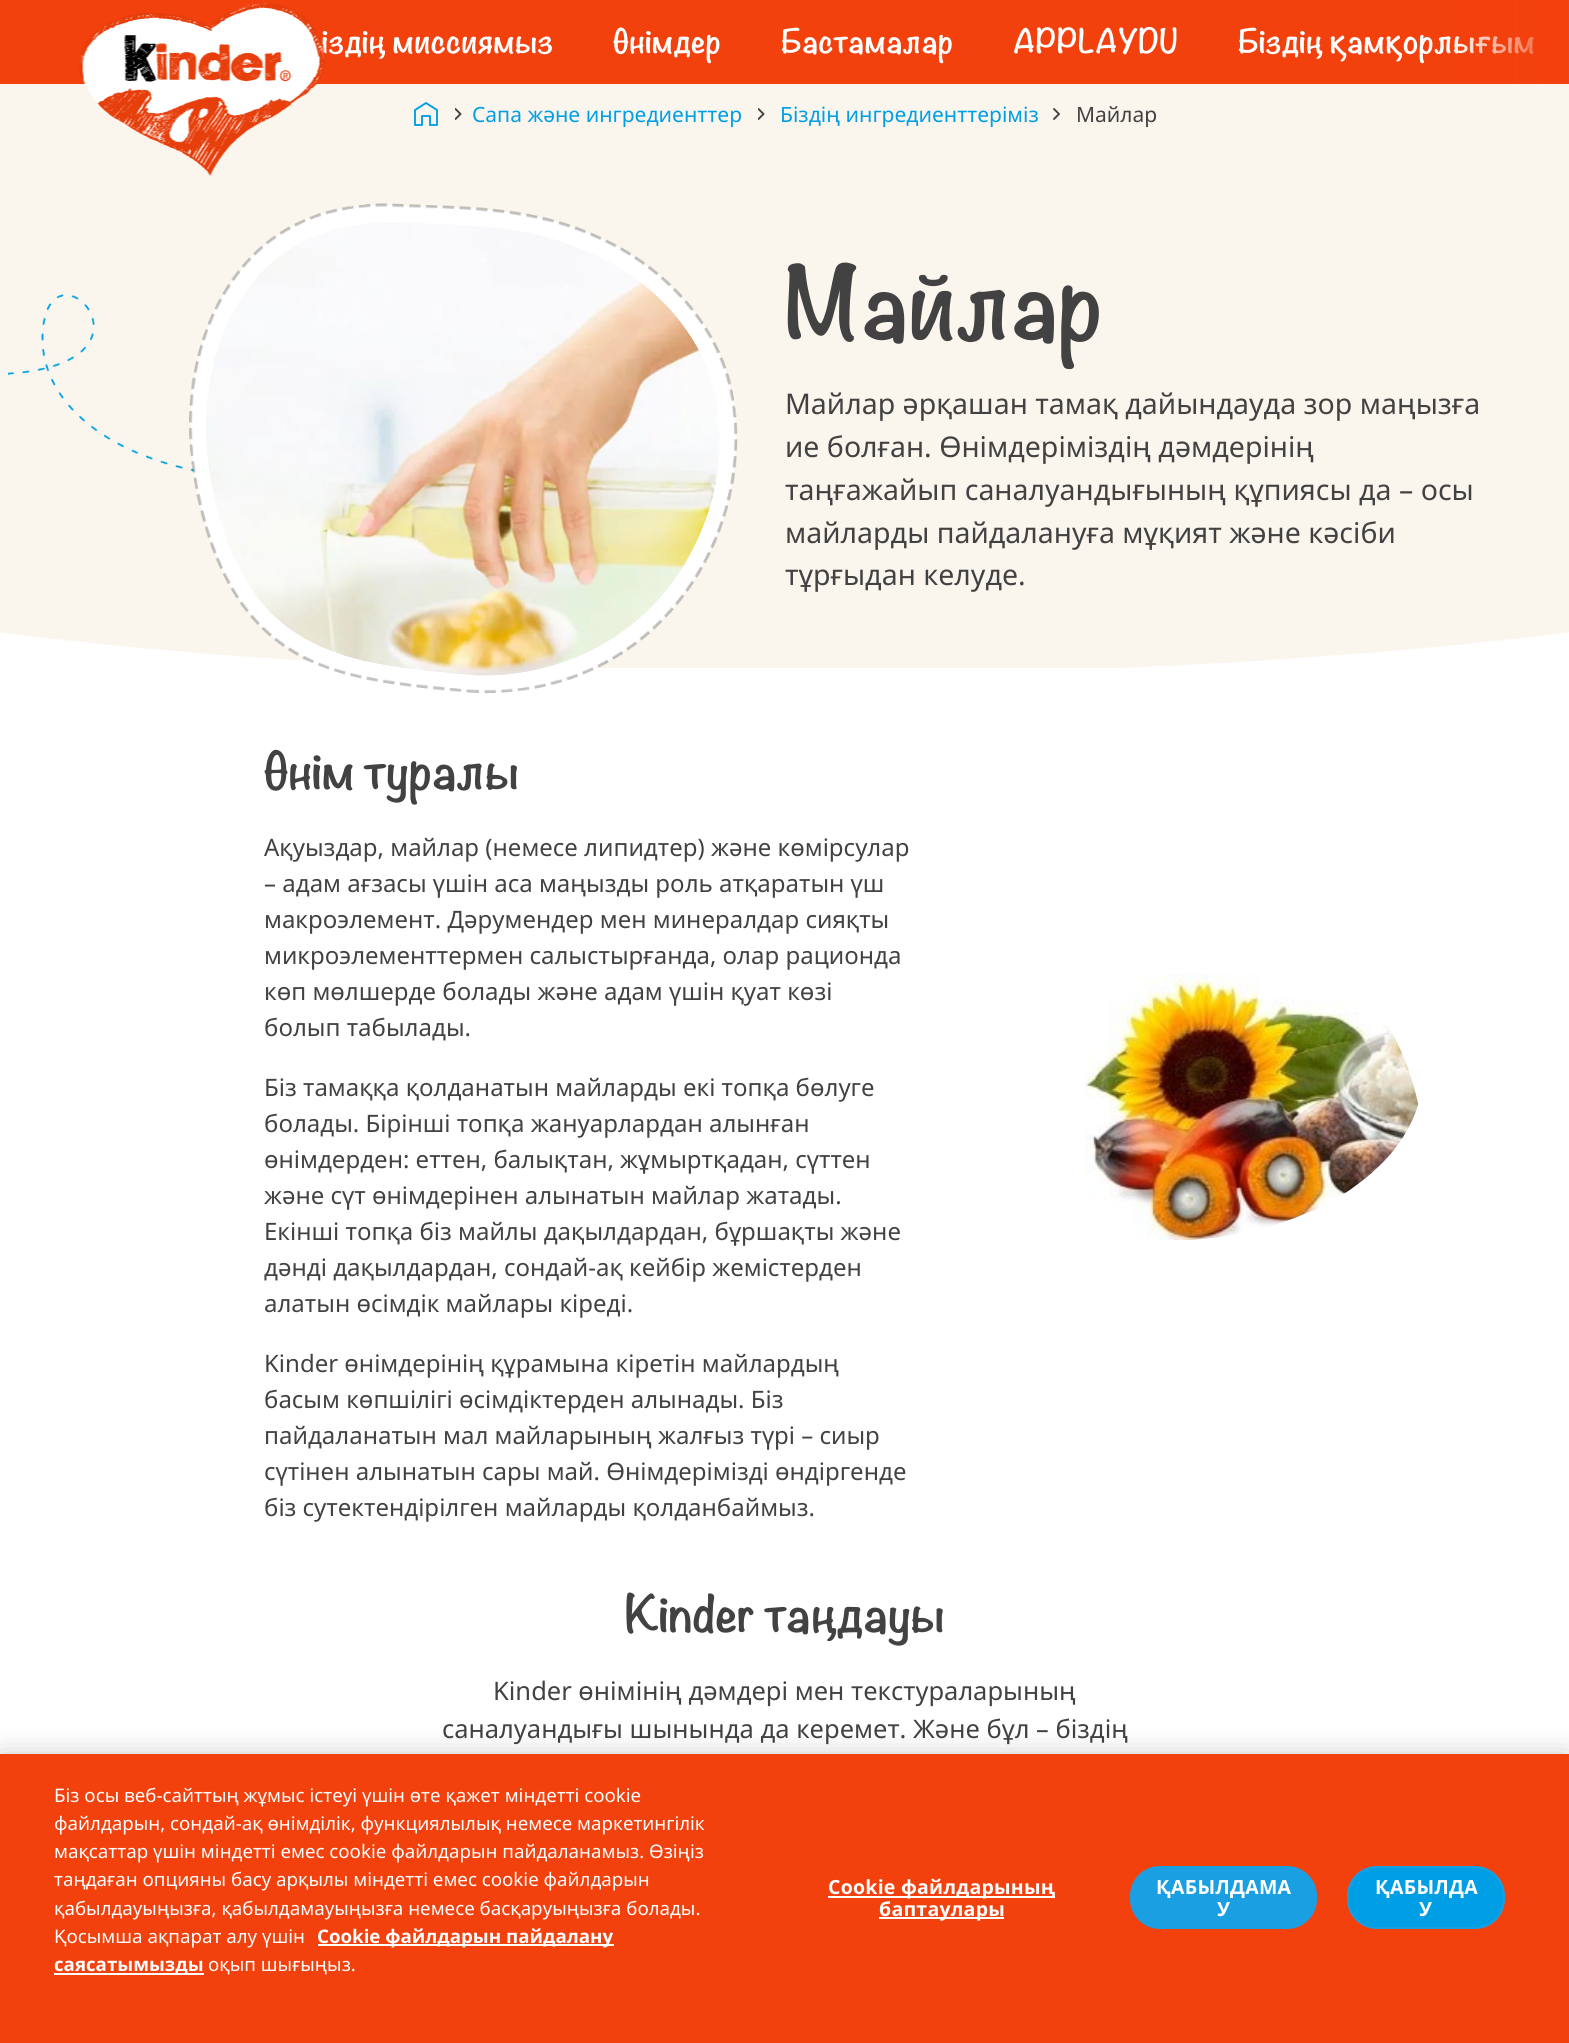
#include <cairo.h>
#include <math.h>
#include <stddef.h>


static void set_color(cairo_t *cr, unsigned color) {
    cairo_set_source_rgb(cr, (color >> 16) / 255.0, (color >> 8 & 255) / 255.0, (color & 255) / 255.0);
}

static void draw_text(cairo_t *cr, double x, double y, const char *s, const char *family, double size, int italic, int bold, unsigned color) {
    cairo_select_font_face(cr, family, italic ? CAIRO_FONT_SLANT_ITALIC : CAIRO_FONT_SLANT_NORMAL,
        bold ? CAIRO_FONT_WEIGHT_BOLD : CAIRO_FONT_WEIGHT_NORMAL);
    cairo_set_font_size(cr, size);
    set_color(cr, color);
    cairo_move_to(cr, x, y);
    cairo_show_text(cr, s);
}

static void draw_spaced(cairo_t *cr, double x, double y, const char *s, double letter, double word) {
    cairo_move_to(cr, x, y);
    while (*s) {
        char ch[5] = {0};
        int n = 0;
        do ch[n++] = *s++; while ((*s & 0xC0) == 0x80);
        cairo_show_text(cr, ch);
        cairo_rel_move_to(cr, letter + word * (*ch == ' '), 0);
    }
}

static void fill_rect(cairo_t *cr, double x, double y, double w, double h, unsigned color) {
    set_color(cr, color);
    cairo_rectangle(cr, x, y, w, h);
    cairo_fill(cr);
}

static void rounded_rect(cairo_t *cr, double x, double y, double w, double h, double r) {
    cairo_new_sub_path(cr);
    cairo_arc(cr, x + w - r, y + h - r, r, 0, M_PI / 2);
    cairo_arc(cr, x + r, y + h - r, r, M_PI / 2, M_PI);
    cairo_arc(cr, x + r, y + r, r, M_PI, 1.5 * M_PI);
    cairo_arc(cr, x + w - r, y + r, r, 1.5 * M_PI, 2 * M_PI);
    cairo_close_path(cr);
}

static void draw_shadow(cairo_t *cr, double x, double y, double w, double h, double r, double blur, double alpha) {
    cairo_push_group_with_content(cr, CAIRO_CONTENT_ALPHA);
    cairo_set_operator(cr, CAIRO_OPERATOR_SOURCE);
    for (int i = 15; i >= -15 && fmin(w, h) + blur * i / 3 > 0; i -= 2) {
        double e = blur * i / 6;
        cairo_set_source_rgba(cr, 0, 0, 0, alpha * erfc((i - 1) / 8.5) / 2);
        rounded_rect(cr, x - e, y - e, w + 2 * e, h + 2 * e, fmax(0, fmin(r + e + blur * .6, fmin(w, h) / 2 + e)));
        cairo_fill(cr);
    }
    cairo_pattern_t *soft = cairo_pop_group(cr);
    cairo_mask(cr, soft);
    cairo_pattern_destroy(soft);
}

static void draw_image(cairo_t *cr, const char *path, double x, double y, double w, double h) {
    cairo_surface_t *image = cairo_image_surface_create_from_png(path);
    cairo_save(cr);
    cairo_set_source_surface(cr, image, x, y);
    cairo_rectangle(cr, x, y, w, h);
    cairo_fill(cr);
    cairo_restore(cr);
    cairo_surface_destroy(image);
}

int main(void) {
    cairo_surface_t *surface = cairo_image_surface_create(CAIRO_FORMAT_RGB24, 1569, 2043);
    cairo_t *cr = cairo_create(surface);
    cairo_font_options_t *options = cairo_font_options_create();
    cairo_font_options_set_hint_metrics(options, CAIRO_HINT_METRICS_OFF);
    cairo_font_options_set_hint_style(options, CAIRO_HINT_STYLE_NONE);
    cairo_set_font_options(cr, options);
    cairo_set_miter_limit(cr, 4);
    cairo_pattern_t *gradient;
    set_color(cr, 0xFFFFFF);
    cairo_paint(cr);
    fill_rect(cr, 0, 0, 1568, 84, 0xF3410E);
    cairo_select_font_face(cr, "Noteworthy", CAIRO_FONT_SLANT_NORMAL, CAIRO_FONT_WEIGHT_BOLD);
    cairo_set_font_size(cr, 30);
    set_color(cr, 0xFFFFFF);
    draw_spaced(cr, 322, 53, "іздің миссиямыз", 0.2, 0);
    fill_rect(cr, 0, 84, 1569, 584, 0xFAF5ED);
    draw_image(cr, "assets/img1.png", 79, 2, 247, 174);
    set_color(cr, 0xFFFFFF);
    draw_spaced(cr, 1238, 53, "Біздің қамқорлығым", 0.2, 0);
    gradient = cairo_pattern_create_linear(1449, 42, 1569, 42);
    cairo_pattern_add_color_stop_rgba(gradient, 0.01, 0.953, 0.255, 0.055, 0);
    cairo_pattern_add_color_stop_rgba(gradient, 1, 0.953, 0.255, 0.055, 1);
    cairo_set_source(cr, gradient);
    cairo_pattern_destroy(gradient);
    cairo_rectangle(cr, 1454, 0, 115, 84);
    cairo_fill(cr);
    set_color(cr, 0xFFFFFF);
    draw_spaced(cr, 613, 53, "Өнімдер", 0.2, 0);
    draw_spaced(cr, 781, 53, "Бастамалар", 0.2, 0);
    draw_spaced(cr, 1013, 53, "APPLAYDU", 0.2, 0);
    cairo_new_path(cr);
    cairo_move_to(cr, 426, 103);
    cairo_line_to(cr, 437, 110);
    cairo_line_to(cr, 437, 125);
    cairo_line_to(cr, 430, 125);
    cairo_line_to(cr, 430, 116);
    cairo_line_to(cr, 422, 116);
    cairo_line_to(cr, 422, 125);
    cairo_line_to(cr, 415, 125);
    cairo_line_to(cr, 415, 110);
    cairo_close_path(cr);
    set_color(cr, 0x009FE5);
    cairo_set_line_width(cr, 1.9);
    cairo_set_line_join(cr, CAIRO_LINE_JOIN_ROUND);
    cairo_stroke(cr);
    cairo_save(cr);
    cairo_rectangle(cr, 455, 108, 7, 12);
    cairo_clip(cr);
    cairo_new_path(cr);
    cairo_move_to(cr, 455.5, 109);
    cairo_line_to(cr, 460.5, 114);
    cairo_line_to(cr, 455.5, 119);
    set_color(cr, 0x424242);
    cairo_set_line_cap(cr, CAIRO_LINE_CAP_ROUND);
    cairo_stroke(cr);
    cairo_restore(cr);
    draw_text(cr, 472, 122, "Сапа және ингредиенттер", "Noto Sans", 21, 0, 0, 0x009FE5);
    cairo_save(cr);
    cairo_rectangle(cr, 758, 108, 7, 12);
    cairo_clip(cr);
    cairo_new_path(cr);
    cairo_move_to(cr, 758.5, 109);
    cairo_line_to(cr, 763.5, 114);
    cairo_line_to(cr, 758.5, 119);
    set_color(cr, 0x424242);
    cairo_set_line_cap(cr, CAIRO_LINE_CAP_ROUND);
    cairo_stroke(cr);
    cairo_restore(cr);
    draw_text(cr, 780, 122, "Біздің ингредиенттеріміз", "Noto Sans", 21, 0, 0, 0x009FE5);
    cairo_new_path(cr);
    cairo_move_to(cr, 1054, 109);
    cairo_line_to(cr, 1059, 114);
    cairo_line_to(cr, 1054, 119);
    set_color(cr, 0x424242);
    cairo_set_line_cap(cr, CAIRO_LINE_CAP_ROUND);
    cairo_stroke(cr);
    draw_text(cr, 1076, 122, "Майлар", "Noto Sans", 21, 0, 0, 0x424242);
    draw_image(cr, "assets/img2.png", 8, 294, 186, 178);
    set_color(cr, 0xFFFFFF);
    cairo_new_path(cr);
    cairo_move_to(cr, 0, 632);
    cairo_line_to(cr, 0, 676);
    cairo_line_to(cr, 1569, 676);
    cairo_line_to(cr, 1569, 632);
    cairo_curve_to(cr, 1569, 632, 1272, 675, 784, 675);
    cairo_curve_to(cr, 295, 676, 0, 632, 0, 632);
    cairo_close_path(cr);
    cairo_fill(cr);
    draw_image(cr, "assets/img3.png", 189, 203, 549, 491);
    draw_image(cr, "assets/img4.png", 206, 222, 514, 454);
    draw_image(cr, "assets/img5.png", 256, 283, 460, 393);
    cairo_select_font_face(cr, "Noteworthy", CAIRO_FONT_SLANT_NORMAL, CAIRO_FONT_WEIGHT_BOLD);
    cairo_set_font_size(cr, 88.5);
    set_color(cr, 0x424242);
    draw_spaced(cr, 785, 339, "Майлар", -0.5, 0);
    draw_text(cr, 785, 414, "Майлар әрқашан тамақ дайындауда зор маңызға", "Noto Sans", 28.5, 0, 0, 0x424242);
    draw_text(cr, 785, 457, "ие болған. Өнімдеріміздің дәмдерінің", "Noto Sans", 28.5, 0, 0, 0x424242);
    draw_text(cr, 785, 500, "таңғажайып саналуандығының құпиясы да – осы", "Noto Sans", 28.5, 0, 0, 0x424242);
    draw_text(cr, 785, 543, "майларды пайдалануға мұқият және кәсіби", "Noto Sans", 28.5, 0, 0, 0x424242);
    draw_text(cr, 785, 585, "тұрғыдан келуде.", "Noto Sans", 28.5, 0, 0, 0x424242);
    cairo_select_font_face(cr, "Noteworthy", CAIRO_FONT_SLANT_NORMAL, CAIRO_FONT_WEIGHT_BOLD);
    cairo_set_font_size(cr, 46);
    draw_spaced(cr, 264, 789, "Өнім туралы", -0.25, 0);
    draw_text(cr, 264, 856, "Ақуыздар, майлар (немесе липидтер) және көмірсулар", "Noto Sans", 24, 0, 0, 0x424242);
    draw_text(cr, 264, 892, "– адам ағзасы үшін аса маңызды роль атқаратын үш", "Noto Sans", 24, 0, 0, 0x424242);
    draw_text(cr, 264, 928, "макроэлемент. Дәрумендер мен минералдар сияқты", "Noto Sans", 24, 0, 0, 0x424242);
    draw_text(cr, 264, 964, "микроэлементтермен салыстырғанда, олар рационда", "Noto Sans", 24, 0, 0, 0x424242);
    draw_text(cr, 264, 1000, "көп мөлшерде болады және адам үшін қуат көзі", "Noto Sans", 24, 0, 0, 0x424242);
    draw_text(cr, 264, 1036, "болып табылады.", "Noto Sans", 24, 0, 0, 0x424242);
    draw_text(cr, 264, 1096, "Біз тамаққа қолданатын майларды екі топқа бөлуге", "Noto Sans", 24, 0, 0, 0x424242);
    draw_text(cr, 264, 1132, "болады. Бірінші топқа жануарлардан алынған", "Noto Sans", 24, 0, 0, 0x424242);
    draw_text(cr, 264, 1168, "өнімдерден: еттен, балықтан, жұмыртқадан, сүттен", "Noto Sans", 24, 0, 0, 0x424242);
    draw_text(cr, 264, 1204, "және сүт өнімдерінен алынатын майлар жатады.", "Noto Sans", 24, 0, 0, 0x424242);
    draw_text(cr, 264, 1240, "Екінші топқа біз майлы дақылдардан, бұршақты және", "Noto Sans", 24, 0, 0, 0x424242);
    draw_text(cr, 264, 1276, "дәнді дақылдардан, сондай-ақ кейбір жемістерден", "Noto Sans", 24, 0, 0, 0x424242);
    draw_text(cr, 264, 1312, "алатын өсімдік майлары кіреді.", "Noto Sans", 24, 0, 0, 0x424242);
    draw_text(cr, 264, 1372, "Kinder өнімдерінің құрамына кіретін майлардың", "Noto Sans", 24, 0, 0, 0x424242);
    draw_text(cr, 264, 1408, "басым көпшілігі өсімдіктерден алынады. Біз", "Noto Sans", 24, 0, 0, 0x424242);
    draw_text(cr, 264, 1444, "пайдаланатын мал майларының жалғыз түрі – сиыр", "Noto Sans", 24, 0, 0, 0x424242);
    draw_text(cr, 264, 1480, "сүтінен алынатын сары май. Өнімдерімізді өндіргенде", "Noto Sans", 24, 0, 0, 0x424242);
    draw_text(cr, 264, 1516, "біз сутектендірілген майларды қолданбаймыз.", "Noto Sans", 24, 0, 0, 0x424242);
    draw_image(cr, "assets/img6.png", 1084, 974, 335, 266);
    cairo_select_font_face(cr, "Noteworthy", CAIRO_FONT_SLANT_NORMAL, CAIRO_FONT_WEIGHT_BOLD);
    cairo_set_font_size(cr, 46);
    draw_spaced(cr, 625, 1632, "Kinder таңдауы", -0.25, 0);
    draw_text(cr, 493, 1700, "Kinder өнімінің дәмдері мен текстураларының", "Noto Sans", 25.5, 0, 0, 0x424242);
    draw_text(cr, 442, 1738, "саналуандығы шынында да керемет. Және бұл – біздің", "Noto Sans", 25.5, 0, 0, 0x424242);
    set_color(cr, 0x000000);
    draw_shadow(cr, 0, 1754, 1569, 289, 0, 13.5, 0.2);
    fill_rect(cr, 0, 1754, 1569, 289, 0xF3410E);
    draw_text(cr, 54, 1802, "Біз осы веб-сайттың жұмыс істеуі үшін өте қажет міндетті cookie", "Noto Sans", 18.7, 0, 0, 0xFFFFFF);
    draw_text(cr, 54, 1830, "файлдарын, сондай-ақ өнімділік, функциялылық немесе маркетингілік", "Noto Sans", 18.7, 0, 0, 0xFFFFFF);
    draw_text(cr, 54, 1858, "мақсаттар үшін міндетті емес cookie файлдарын пайдаланамыз. Өзіңіз", "Noto Sans", 18.7, 0, 0, 0xFFFFFF);
    draw_text(cr, 54, 1886, "таңдаған опцияны басу арқылы міндетті емес cookie файлдарын", "Noto Sans", 18.7, 0, 0, 0xFFFFFF);
    draw_text(cr, 54, 1915, "қабылдауыңызға, қабылдамауыңызға немесе басқаруыңызға болады.", "Noto Sans", 18.7, 0, 0, 0xFFFFFF);
    draw_text(cr, 54, 1943, "Қосымша ақпарат алу үшін", "Noto Sans", 18.7, 0, 0, 0xFFFFFF);
    fill_rect(cr, 318, 1944, 296, 2, 0xFFFFFF);
    draw_text(cr, 317, 1943, "Cookie файлдарын пайдалану", "Noto Sans", 18.7, 0, 1, 0xFFFFFF);
    fill_rect(cr, 54, 1973, 150, 2, 0xFFFFFF);
    draw_text(cr, 54, 1971, "саясатымызды", "Noto Sans", 18.7, 0, 1, 0xFFFFFF);
    draw_text(cr, 208, 1971, "оқып шығыңыз.", "Noto Sans", 18.7, 0, 0, 0xFFFFFF);
    fill_rect(cr, 828, 1896, 227, 2, 0xFFFFFF);
    cairo_select_font_face(cr, "Noto Sans", CAIRO_FONT_SLANT_NORMAL, CAIRO_FONT_WEIGHT_BOLD);
    cairo_set_font_size(cr, 19.5);
    draw_spaced(cr, 828, 1894, "Cookie файлдарының", 0.25, 0);
    fill_rect(cr, 879, 1917, 125, 2, 0xFFFFFF);
    draw_spaced(cr, 879, 1916, "баптаулары", 0.25, 0);
    set_color(cr, 0x1A9FE2);
    rounded_rect(cr, 1131, 1867, 185, 61, 29);
    cairo_fill_preserve(cr);
    cairo_set_line_width(cr, 2);
    cairo_set_line_cap(cr, CAIRO_LINE_CAP_BUTT);
    cairo_set_line_join(cr, CAIRO_LINE_JOIN_MITER);
    cairo_stroke(cr);
    set_color(cr, 0xFFFFFF);
    draw_spaced(cr, 1156, 1894, "ҚАБЫЛДАМА", 0.25, 0);
    draw_spaced(cr, 1217, 1916, "У", 0.25, 0);
    set_color(cr, 0x009FE5);
    rounded_rect(cr, 1348, 1867, 156, 61, 29);
    cairo_fill_preserve(cr);
    set_color(cr, 0x1A9FE2);
    cairo_stroke(cr);
    set_color(cr, 0xFFFFFF);
    draw_spaced(cr, 1375, 1894, "ҚАБЫЛДА", 0.25, 0);
    draw_spaced(cr, 1419, 1916, "У", 0.25, 0);
    cairo_surface_write_to_png(surface, "output.png");
    cairo_font_options_destroy(options);
    cairo_destroy(cr);
    cairo_surface_destroy(surface);
    return 0;
}
